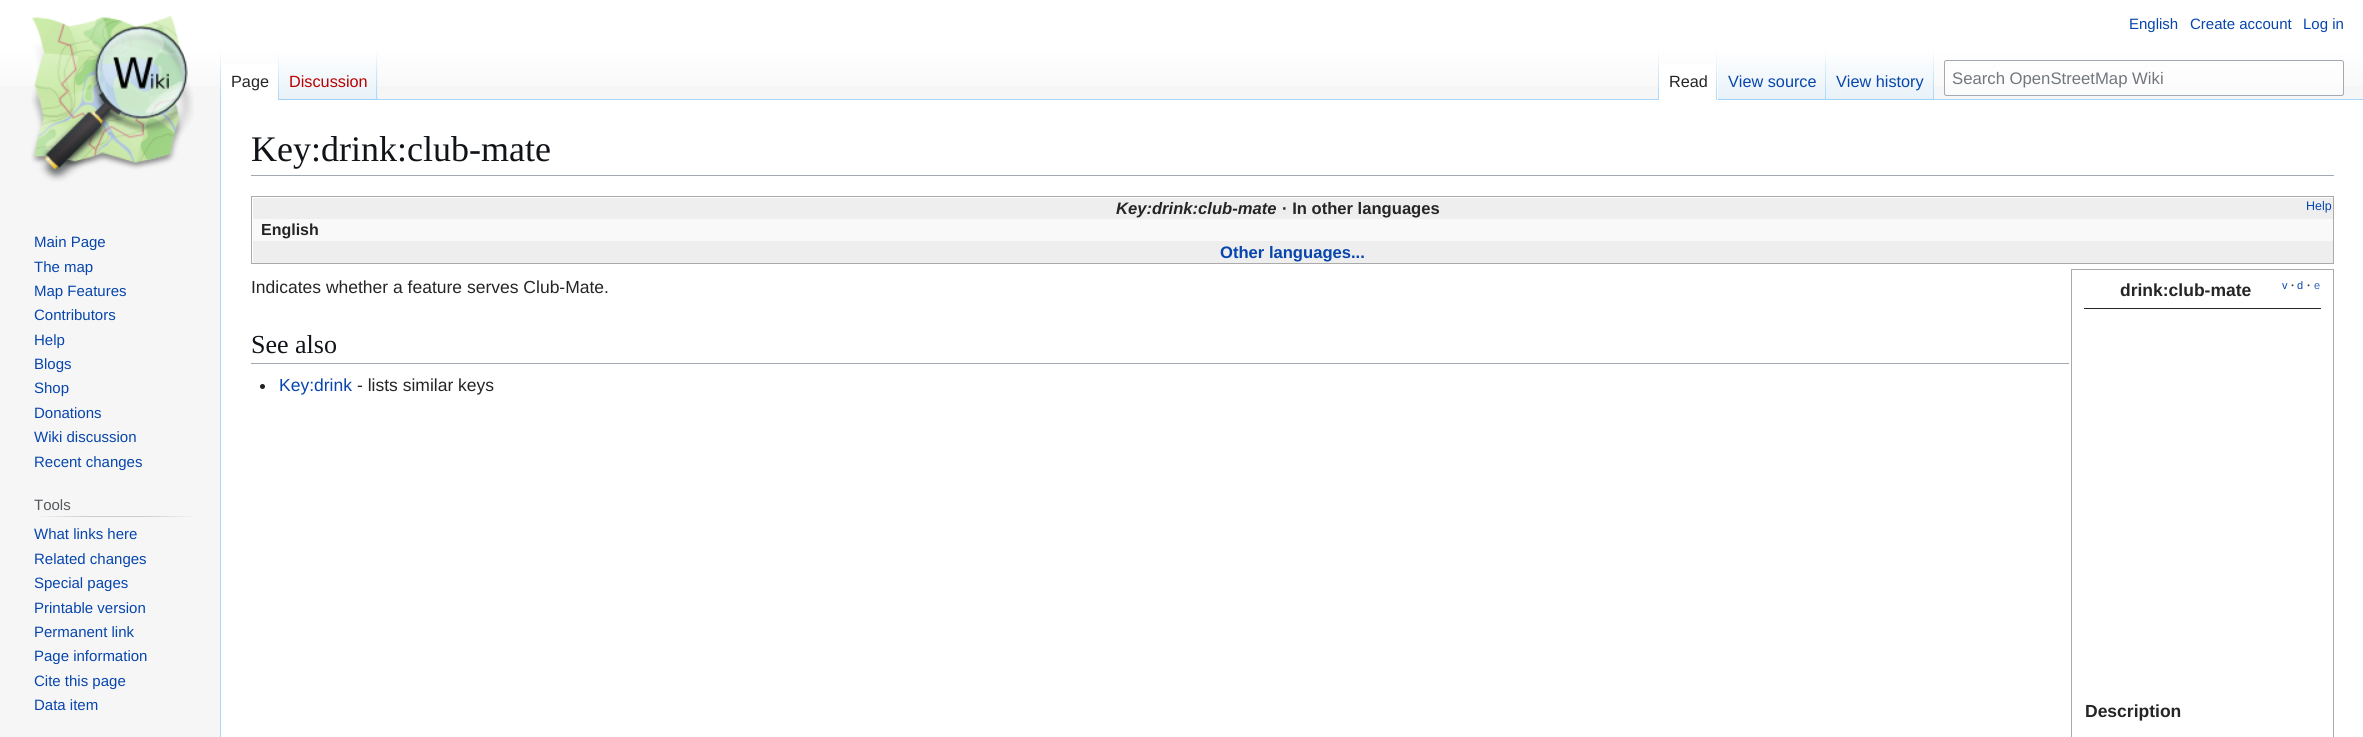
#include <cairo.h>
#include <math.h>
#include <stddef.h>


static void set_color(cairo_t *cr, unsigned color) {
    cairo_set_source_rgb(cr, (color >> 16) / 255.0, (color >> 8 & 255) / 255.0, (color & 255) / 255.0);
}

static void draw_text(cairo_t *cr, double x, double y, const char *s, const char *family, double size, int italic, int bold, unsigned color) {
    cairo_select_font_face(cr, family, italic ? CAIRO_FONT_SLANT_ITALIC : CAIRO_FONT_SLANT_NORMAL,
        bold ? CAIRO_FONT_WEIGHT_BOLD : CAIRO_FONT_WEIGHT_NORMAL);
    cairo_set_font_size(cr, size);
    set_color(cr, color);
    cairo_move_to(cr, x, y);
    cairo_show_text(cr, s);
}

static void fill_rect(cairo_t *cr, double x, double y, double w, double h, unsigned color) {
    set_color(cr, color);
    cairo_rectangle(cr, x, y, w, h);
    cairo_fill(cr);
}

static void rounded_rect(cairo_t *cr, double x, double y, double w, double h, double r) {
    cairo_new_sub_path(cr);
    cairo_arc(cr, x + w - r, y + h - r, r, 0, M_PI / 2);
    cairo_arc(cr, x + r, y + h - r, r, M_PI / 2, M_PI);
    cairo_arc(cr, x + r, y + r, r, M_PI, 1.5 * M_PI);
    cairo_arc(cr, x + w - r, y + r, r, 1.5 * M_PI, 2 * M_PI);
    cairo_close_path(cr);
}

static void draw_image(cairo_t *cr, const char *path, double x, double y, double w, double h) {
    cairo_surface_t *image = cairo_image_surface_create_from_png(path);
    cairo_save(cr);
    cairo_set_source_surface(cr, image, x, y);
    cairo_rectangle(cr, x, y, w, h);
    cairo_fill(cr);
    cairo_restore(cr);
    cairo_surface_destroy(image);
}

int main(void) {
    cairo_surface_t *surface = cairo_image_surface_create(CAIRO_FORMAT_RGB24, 2363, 737);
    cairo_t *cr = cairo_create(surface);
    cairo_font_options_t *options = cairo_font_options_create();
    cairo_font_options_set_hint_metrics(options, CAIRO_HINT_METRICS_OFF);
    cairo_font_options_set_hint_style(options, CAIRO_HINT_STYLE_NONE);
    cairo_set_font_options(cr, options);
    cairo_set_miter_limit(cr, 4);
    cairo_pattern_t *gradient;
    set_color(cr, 0xF6F6F6);
    cairo_paint(cr);
    gradient = cairo_pattern_create_linear(1182, 0, 1182, 100);
    cairo_pattern_add_color_stop_rgba(gradient, 0.5, 1, 1, 1, 1);
    cairo_pattern_add_color_stop_rgba(gradient, 1, 0.965, 0.965, 0.965, 1);
    cairo_set_source(cr, gradient);
    cairo_pattern_destroy(gradient);
    cairo_rectangle(cr, 0, 0, 2363, 86);
    cairo_fill(cr);
    draw_text(cr, 2129, 29, "English", "Liberation Sans", 15, 0, 0, 0x0645AD);
    draw_text(cr, 2190, 29, "Create account", "Liberation Sans", 15, 0, 0, 0x0645AD);
    draw_text(cr, 2303, 29, "Log in", "Liberation Sans", 15, 0, 0, 0x0645AD);
    fill_rect(cr, 220, 99, 1, 638, 0xA7D7F9);
    gradient = cairo_pattern_create_linear(221, 50, 221, 100);
    cairo_pattern_add_color_stop_rgba(gradient, 0, 0.655, 0.843, 0.976, 0);
    cairo_pattern_add_color_stop_rgba(gradient, 1, 0.655, 0.843, 0.976, 1);
    cairo_set_source(cr, gradient);
    cairo_pattern_destroy(gradient);
    cairo_rectangle(cr, 220, 50, 1, 50);
    cairo_fill(cr);
    fill_rect(cr, 221, 64, 57, 36, 0xFFFFFF);
    gradient = cairo_pattern_create_linear(278, 50, 278, 100);
    cairo_pattern_add_color_stop_rgba(gradient, 0, 1, 1, 1, 1);
    cairo_pattern_add_color_stop_rgba(gradient, 1, 0.655, 0.843, 0.976, 1);
    cairo_set_source(cr, gradient);
    cairo_pattern_destroy(gradient);
    cairo_rectangle(cr, 278, 50, 1, 50);
    cairo_fill(cr);
    draw_text(cr, 231, 87, "Page", "Liberation Sans", 16.25, 0, 0, 0x252525);
    gradient = cairo_pattern_create_linear(328, 100, 328, 50);
    cairo_pattern_add_color_stop_rgba(gradient, 0, 0.467, 0.757, 0.965, 1);
    cairo_pattern_add_color_stop_rgba(gradient, 0.03, 0.91, 0.949, 0.973, 1);
    cairo_pattern_add_color_stop_rgba(gradient, 1, 1, 1, 1, 1);
    cairo_set_source(cr, gradient);
    cairo_pattern_destroy(gradient);
    cairo_rectangle(cr, 279, 57, 99, 43);
    cairo_fill(cr);
    gradient = cairo_pattern_create_linear(377, 50, 377, 100);
    cairo_pattern_add_color_stop_rgba(gradient, 0, 0.655, 0.843, 0.976, 0);
    cairo_pattern_add_color_stop_rgba(gradient, 1, 0.655, 0.843, 0.976, 1);
    cairo_set_source(cr, gradient);
    cairo_pattern_destroy(gradient);
    cairo_rectangle(cr, 376, 50, 1, 50);
    cairo_fill(cr);
    draw_text(cr, 289, 87, "Discussion", "Liberation Sans", 16.25, 0, 0, 0xBA0000);
    fill_rect(cr, 378, 99, 1985, 1, 0xA7D7F9);
    gradient = cairo_pattern_create_linear(1658, 50, 1658, 100);
    cairo_pattern_add_color_stop_rgba(gradient, 0, 0.655, 0.843, 0.976, 0);
    cairo_pattern_add_color_stop_rgba(gradient, 1, 0.655, 0.843, 0.976, 1);
    cairo_set_source(cr, gradient);
    cairo_pattern_destroy(gradient);
    cairo_rectangle(cr, 1658, 50, 1, 50);
    cairo_fill(cr);
    fill_rect(cr, 1659, 64, 59, 36, 0xFFFFFF);
    gradient = cairo_pattern_create_linear(1717, 50, 1717, 100);
    cairo_pattern_add_color_stop_rgba(gradient, 0, 1, 1, 1, 1);
    cairo_pattern_add_color_stop_rgba(gradient, 1, 0.655, 0.843, 0.976, 1);
    cairo_set_source(cr, gradient);
    cairo_pattern_destroy(gradient);
    cairo_rectangle(cr, 1716, 50, 1, 50);
    cairo_fill(cr);
    draw_text(cr, 1669, 87, "Read", "Liberation Sans", 16.25, 0, 0, 0x252525);
    gradient = cairo_pattern_create_linear(1772, 100, 1772, 50);
    cairo_pattern_add_color_stop_rgba(gradient, 0, 0.467, 0.757, 0.965, 1);
    cairo_pattern_add_color_stop_rgba(gradient, 0.03, 0.91, 0.949, 0.973, 1);
    cairo_pattern_add_color_stop_rgba(gradient, 1, 1, 1, 1, 1);
    cairo_set_source(cr, gradient);
    cairo_pattern_destroy(gradient);
    cairo_rectangle(cr, 1718, 57, 108, 43);
    cairo_fill(cr);
    gradient = cairo_pattern_create_linear(1826, 50, 1826, 100);
    cairo_pattern_add_color_stop_rgba(gradient, 0, 0.655, 0.843, 0.976, 0);
    cairo_pattern_add_color_stop_rgba(gradient, 1, 0.655, 0.843, 0.976, 1);
    cairo_set_source(cr, gradient);
    cairo_pattern_destroy(gradient);
    cairo_rectangle(cr, 1825, 50, 1, 50);
    cairo_fill(cr);
    draw_text(cr, 1728, 87, "View source", "Liberation Sans", 16.25, 0, 0, 0x0645AD);
    gradient = cairo_pattern_create_linear(1880, 100, 1880, 50);
    cairo_pattern_add_color_stop_rgba(gradient, 0, 0.467, 0.757, 0.965, 1);
    cairo_pattern_add_color_stop_rgba(gradient, 0.03, 0.91, 0.949, 0.973, 1);
    cairo_pattern_add_color_stop_rgba(gradient, 1, 1, 1, 1, 1);
    cairo_set_source(cr, gradient);
    cairo_pattern_destroy(gradient);
    cairo_rectangle(cr, 1826, 57, 108, 43);
    cairo_fill(cr);
    gradient = cairo_pattern_create_linear(1933, 50, 1933, 100);
    cairo_pattern_add_color_stop_rgba(gradient, 0, 0.655, 0.843, 0.976, 0);
    cairo_pattern_add_color_stop_rgba(gradient, 1, 0.655, 0.843, 0.976, 1);
    cairo_set_source(cr, gradient);
    cairo_pattern_destroy(gradient);
    cairo_rectangle(cr, 1933, 50, 1, 50);
    cairo_fill(cr);
    draw_text(cr, 1836, 87, "View history", "Liberation Sans", 16.25, 0, 0, 0x0645AD);
    cairo_set_source_rgba(cr, 1, 1, 1, 0.5);
    rounded_rect(cr, 1944.5, 60.5, 399, 35, 2);
    cairo_fill_preserve(cr);
    set_color(cr, 0xA2A9B1);
    cairo_set_line_width(cr, 1);
    cairo_stroke(cr);
    draw_text(cr, 1952, 84, "Search OpenStreetMap Wiki", "Liberation Sans", 16.7, 0, 0, 0x72777D);
    draw_image(cr, "assets/img1.png", 31, 16, 163, 166);
    draw_text(cr, 34, 247, "Main Page", "Liberation Sans", 15, 0, 0, 0x0645AD);
    draw_text(cr, 34, 272, "The map", "Liberation Sans", 15, 0, 0, 0x0645AD);
    draw_text(cr, 34, 296, "Map Features", "Liberation Sans", 15, 0, 0, 0x0645AD);
    draw_text(cr, 34, 320, "Contributors", "Liberation Sans", 15, 0, 0, 0x0645AD);
    draw_text(cr, 34, 345, "Help", "Liberation Sans", 15, 0, 0, 0x0645AD);
    draw_text(cr, 34, 369, "Blogs", "Liberation Sans", 15, 0, 0, 0x0645AD);
    draw_text(cr, 34, 393, "Shop", "Liberation Sans", 15, 0, 0, 0x0645AD);
    draw_text(cr, 34, 418, "Donations", "Liberation Sans", 15, 0, 0, 0x0645AD);
    draw_text(cr, 34, 442, "Wiki discussion", "Liberation Sans", 15, 0, 0, 0x0645AD);
    draw_text(cr, 34, 467, "Recent changes", "Liberation Sans", 15, 0, 0, 0x0645AD);
    gradient = cairo_pattern_create_linear(34, 517, 198, 517);
    cairo_pattern_add_color_stop_rgba(gradient, 0, 0.965, 0.965, 0.965, 1);
    cairo_pattern_add_color_stop_rgba(gradient, 0.33, 0.784, 0.8, 0.82, 1);
    cairo_pattern_add_color_stop_rgba(gradient, 0.66, 0.784, 0.8, 0.82, 1);
    cairo_pattern_add_color_stop_rgba(gradient, 1, 0.965, 0.965, 0.965, 1);
    cairo_set_source(cr, gradient);
    cairo_pattern_destroy(gradient);
    cairo_rectangle(cr, 34, 516, 164, 1);
    cairo_fill(cr);
    draw_text(cr, 34, 510, "Tools", "Liberation Sans", 15, 0, 0, 0x54595D);
    draw_text(cr, 34, 539, "What links here", "Liberation Sans", 15, 0, 0, 0x0645AD);
    draw_text(cr, 34, 564, "Related changes", "Liberation Sans", 15, 0, 0, 0x0645AD);
    draw_text(cr, 34, 588, "Special pages", "Liberation Sans", 15, 0, 0, 0x0645AD);
    draw_text(cr, 34, 613, "Printable version", "Liberation Sans", 15, 0, 0, 0x0645AD);
    draw_text(cr, 34, 637, "Permanent link", "Liberation Sans", 15, 0, 0, 0x0645AD);
    draw_text(cr, 34, 661, "Page information", "Liberation Sans", 15, 0, 0, 0x0645AD);
    draw_text(cr, 34, 686, "Cite this page", "Liberation Sans", 15, 0, 0, 0x0645AD);
    draw_text(cr, 34, 710, "Data item", "Liberation Sans", 15, 0, 0, 0x0645AD);
    fill_rect(cr, 221, 100, 2142, 637, 0xFFFFFF);
    fill_rect(cr, 251, 175, 2083, 1, 0xA2A9B1);
    draw_text(cr, 251, 161, "Key:drink:club-mate", "Liberation Serif", 36, 0, 0, 0x101418);
    cairo_rectangle(cr, 251.5, 196.5, 2082, 67);
    set_color(cr, 0xAAAAAA);
    cairo_stroke(cr);
    fill_rect(cr, 253, 198, 2080, 21, 0xEEEEEE);
    draw_text(cr, 1116, 214, "Key:drink:club-mate", "Liberation Sans", 16.6, 1, 1, 0x252525);
    draw_text(cr, 1282, 214, "· In other languages", "Liberation Sans", 16.6, 0, 1, 0x252525);
    draw_text(cr, 2306, 210, "Help", "Liberation Sans", 12.5, 0, 0, 0x0645AD);
    fill_rect(cr, 253, 219, 2080, 22, 0xF9F9F9);
    draw_text(cr, 261, 235, "English", "Liberation Sans", 16, 0, 1, 0x252525);
    fill_rect(cr, 253, 241, 2080, 22, 0xEEEEEE);
    draw_text(cr, 1220, 258, "Other languages...", "Liberation Sans", 16.6, 0, 1, 0x0645AD);
    draw_text(cr, 251, 293, "Indicates whether a feature serves Club-Mate.", "Liberation Sans", 17.5, 0, 0, 0x252525);
    cairo_rectangle(cr, 2071.5, 269.5, 262, 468);
    set_color(cr, 0xAAAAAA);
    cairo_stroke(cr);
    fill_rect(cr, 2084, 308, 237, 1, 0x252525);
    draw_text(cr, 2120, 296, "drink:club-mate", "Liberation Sans", 17.5, 0, 1, 0x252525);
    draw_text(cr, 2282, 289, "v", "Liberation Sans", 11, 0, 0, 0x0645AD);
    draw_text(cr, 2291, 289, "·", "Liberation Sans", 11, 0, 1, 0x252525);
    draw_text(cr, 2297, 289, "d", "Liberation Sans", 11, 0, 0, 0x0645AD);
    draw_text(cr, 2307, 289, "·", "Liberation Sans", 11, 0, 1, 0x252525);
    draw_text(cr, 2314, 289, "e", "Liberation Sans", 11, 0, 0, 0x3366BB);
    draw_text(cr, 2085, 717, "Description", "Liberation Sans", 17.5, 0, 1, 0x252525);
    fill_rect(cr, 251, 363, 1818, 1, 0xA2A9B1);
    draw_text(cr, 251, 353, "See also", "Liberation Serif", 26, 0, 0, 0x101418);
    set_color(cr, 0x202122);
    cairo_new_path(cr);
    cairo_arc(cr, 262.5, 386.5, 2.5, 0, 2 * M_PI);
    cairo_fill(cr);
    draw_text(cr, 279, 391, "Key:drink", "Liberation Sans", 17.5, 0, 0, 0x0645AD);
    draw_text(cr, 357, 391, "- lists similar keys", "Liberation Sans", 17.5, 0, 0, 0x252525);
    cairo_surface_write_to_png(surface, "output.png");
    cairo_font_options_destroy(options);
    cairo_destroy(cr);
    cairo_surface_destroy(surface);
    return 0;
}
